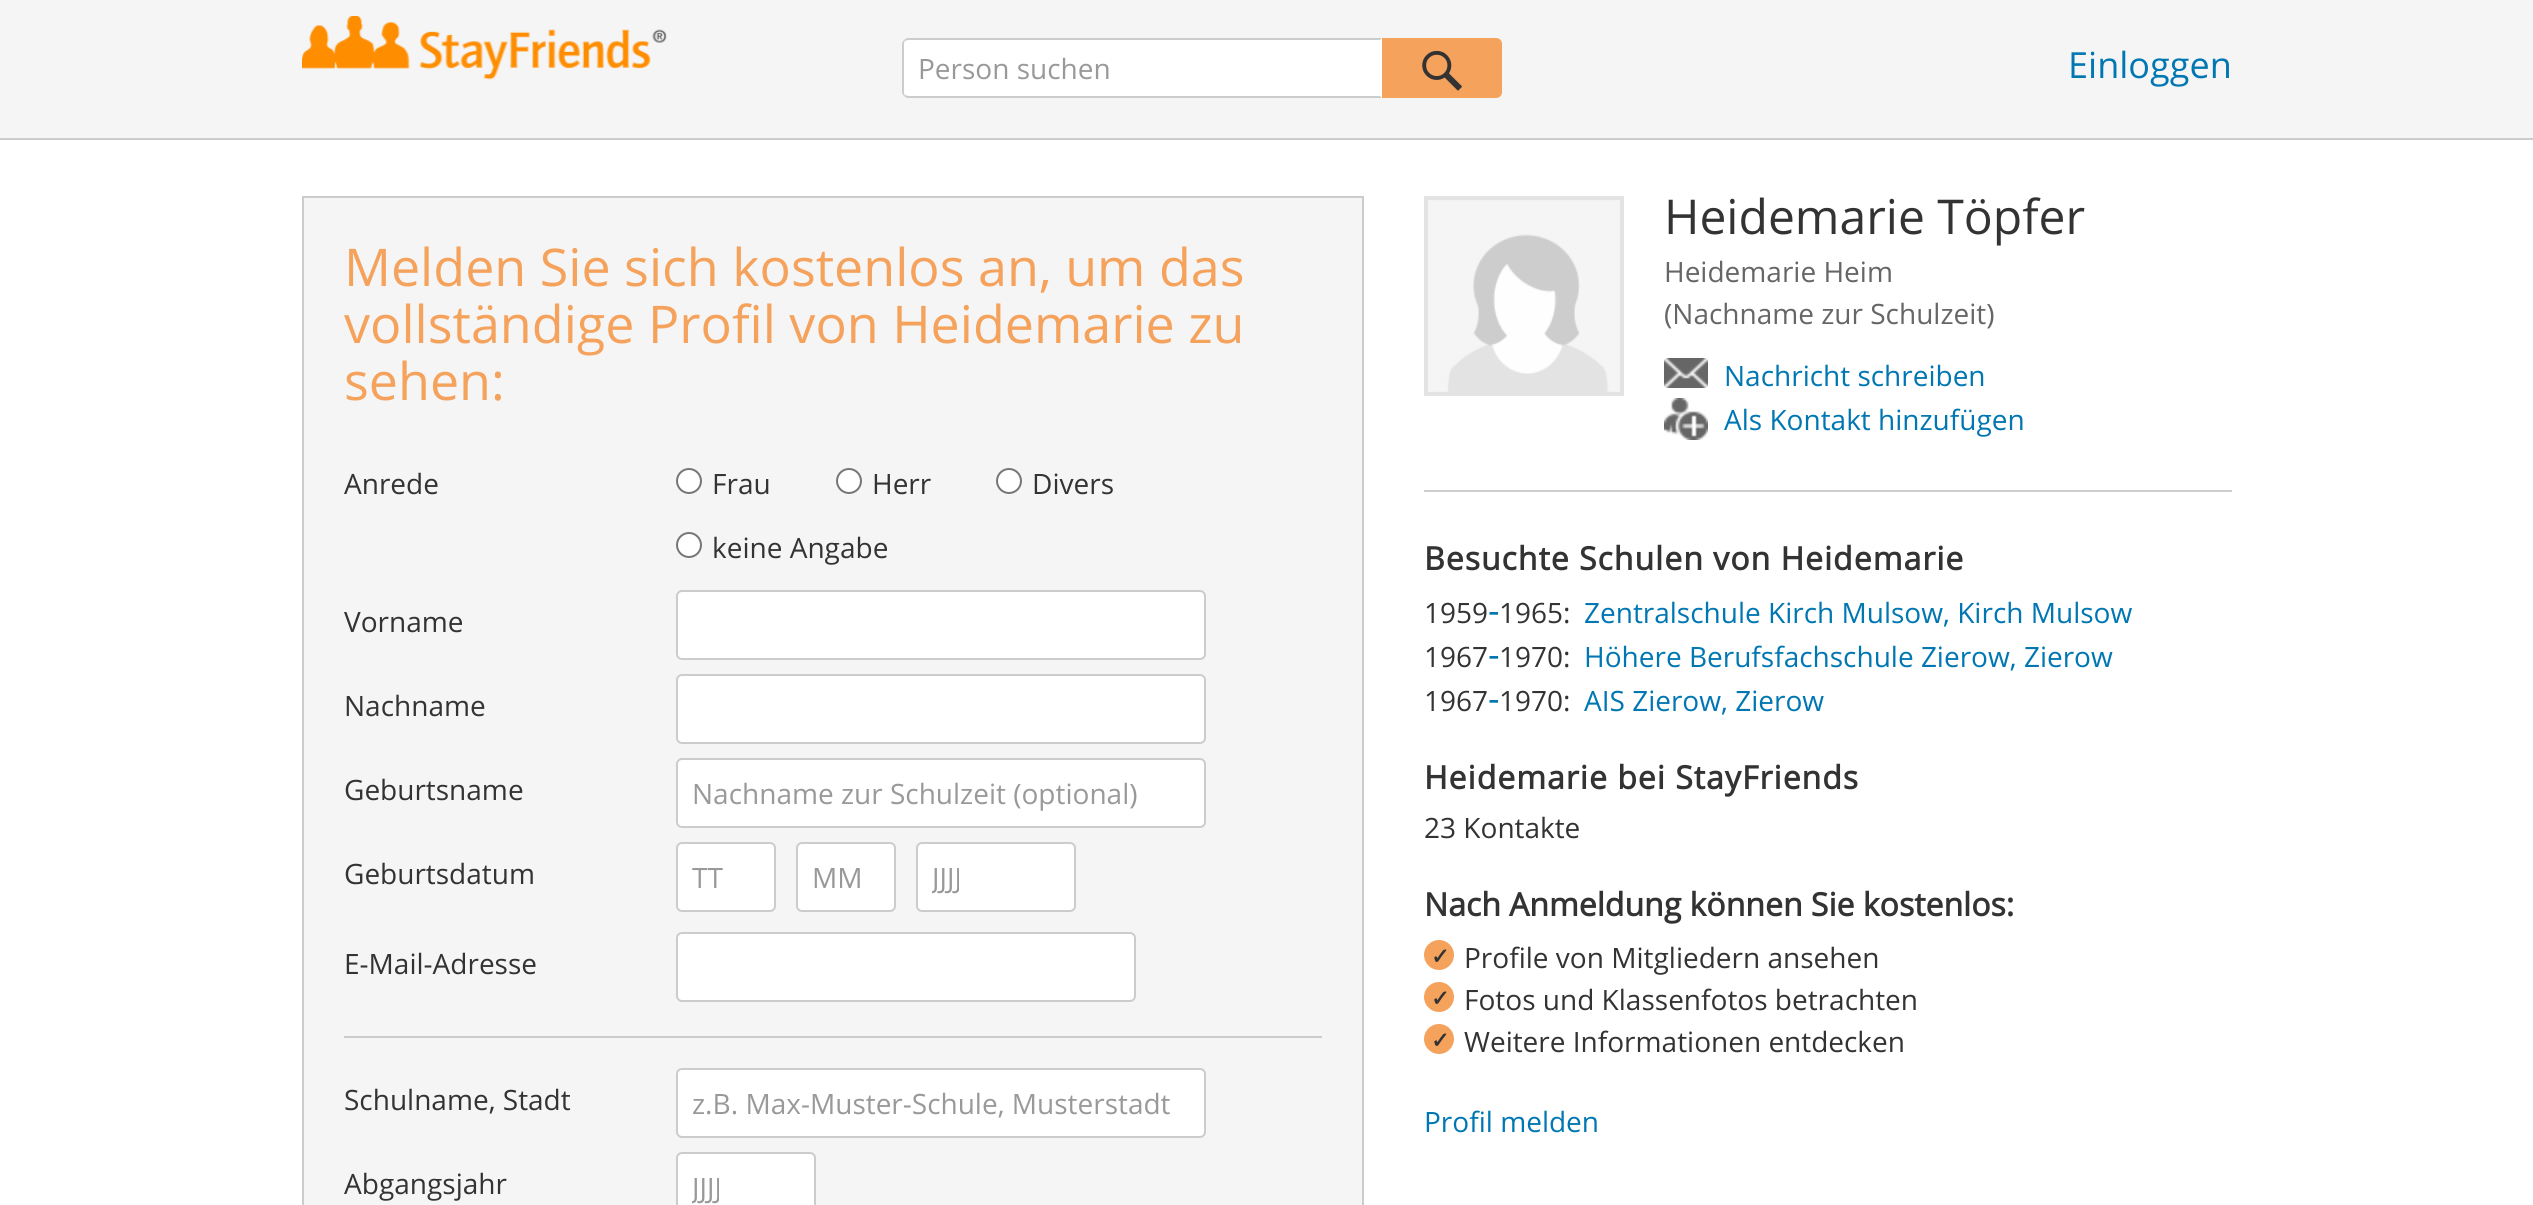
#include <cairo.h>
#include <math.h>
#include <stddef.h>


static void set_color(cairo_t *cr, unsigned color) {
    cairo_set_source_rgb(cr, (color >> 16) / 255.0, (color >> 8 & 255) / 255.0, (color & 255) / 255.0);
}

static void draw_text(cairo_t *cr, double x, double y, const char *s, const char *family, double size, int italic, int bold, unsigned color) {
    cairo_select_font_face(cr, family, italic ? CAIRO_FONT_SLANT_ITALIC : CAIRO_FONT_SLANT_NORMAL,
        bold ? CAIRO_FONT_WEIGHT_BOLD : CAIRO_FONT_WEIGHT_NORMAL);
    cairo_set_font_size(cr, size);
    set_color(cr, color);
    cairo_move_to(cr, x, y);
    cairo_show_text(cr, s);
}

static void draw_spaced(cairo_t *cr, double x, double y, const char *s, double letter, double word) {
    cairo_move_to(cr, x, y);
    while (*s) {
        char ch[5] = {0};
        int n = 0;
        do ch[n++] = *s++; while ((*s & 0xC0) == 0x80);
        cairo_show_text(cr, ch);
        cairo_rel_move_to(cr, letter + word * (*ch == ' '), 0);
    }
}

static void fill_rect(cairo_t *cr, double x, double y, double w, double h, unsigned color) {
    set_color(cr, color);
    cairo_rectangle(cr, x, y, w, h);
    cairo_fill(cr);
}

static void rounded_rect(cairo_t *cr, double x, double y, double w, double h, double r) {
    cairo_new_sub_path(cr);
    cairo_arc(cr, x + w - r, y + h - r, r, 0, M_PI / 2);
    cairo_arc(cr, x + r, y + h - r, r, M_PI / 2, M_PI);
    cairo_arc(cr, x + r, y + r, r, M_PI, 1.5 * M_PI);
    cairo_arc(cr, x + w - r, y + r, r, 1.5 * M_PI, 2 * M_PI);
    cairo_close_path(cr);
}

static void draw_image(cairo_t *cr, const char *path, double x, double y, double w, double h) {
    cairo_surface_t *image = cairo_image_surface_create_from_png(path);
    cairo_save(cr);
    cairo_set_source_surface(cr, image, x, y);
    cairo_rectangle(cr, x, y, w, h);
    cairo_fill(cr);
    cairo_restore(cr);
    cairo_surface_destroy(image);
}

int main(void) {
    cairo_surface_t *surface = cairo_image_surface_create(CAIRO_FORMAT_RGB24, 2533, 1205);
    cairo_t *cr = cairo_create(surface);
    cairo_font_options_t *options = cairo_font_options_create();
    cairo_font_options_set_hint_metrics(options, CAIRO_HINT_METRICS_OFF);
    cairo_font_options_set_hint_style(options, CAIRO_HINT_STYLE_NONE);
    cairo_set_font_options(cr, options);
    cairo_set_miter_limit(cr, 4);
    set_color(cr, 0xFFFFFF);
    cairo_paint(cr);
    fill_rect(cr, 0, 0, 2533, 138, 0xF5F5F5);
    fill_rect(cr, 0, 138, 2533, 2, 0xCCCCCC);
    draw_image(cr, "assets/img1.png", 302, 16, 365, 64);
    set_color(cr, 0xFFFFFF);
    cairo_new_path(cr);
    cairo_move_to(cr, 908, 38);
    cairo_line_to(cr, 1382, 38);
    cairo_line_to(cr, 1382, 98);
    cairo_line_to(cr, 908, 98);
    cairo_curve_to(cr, 904.5, 98, 902, 95.5, 902, 92);
    cairo_line_to(cr, 902, 44);
    cairo_curve_to(cr, 902, 40.5, 904.5, 38, 908, 38);
    cairo_close_path(cr);
    cairo_fill(cr);
    set_color(cr, 0xCCCCCC);
    cairo_new_path(cr);
    cairo_move_to(cr, 908, 38);
    cairo_curve_to(cr, 906, 38, 905, 39, 904, 40);
    cairo_line_to(cr, 905, 41);
    cairo_line_to(cr, 908, 40);
    cairo_line_to(cr, 1380, 40);
    cairo_line_to(cr, 1382, 38);
    cairo_close_path(cr);
    cairo_fill(cr);
    cairo_new_path(cr);
    cairo_move_to(cr, 1382, 98);
    cairo_line_to(cr, 1380, 96);
    cairo_line_to(cr, 908, 96);
    cairo_line_to(cr, 905, 95);
    cairo_line_to(cr, 904, 96);
    cairo_curve_to(cr, 905, 97, 906, 98, 908, 98);
    cairo_close_path(cr);
    cairo_fill(cr);
    cairo_new_path(cr);
    cairo_move_to(cr, 902, 44);
    cairo_line_to(cr, 902, 92);
    cairo_curve_to(cr, 902, 94, 903, 95, 904, 96);
    cairo_line_to(cr, 905, 95);
    cairo_curve_to(cr, 904, 94, 904, 93, 904, 92);
    cairo_line_to(cr, 904, 44);
    cairo_curve_to(cr, 904, 43, 904, 42, 905, 41);
    cairo_line_to(cr, 904, 40);
    cairo_curve_to(cr, 903, 41, 902, 42, 902, 44);
    cairo_close_path(cr);
    cairo_fill(cr);
    draw_text(cr, 918, 79, "Person suchen", "Open Sans", 28, 0, 0, 0x999999);
    set_color(cr, 0xF5A25D);
    cairo_new_path(cr);
    cairo_move_to(cr, 1383, 39);
    cairo_line_to(cr, 1496, 39);
    cairo_curve_to(cr, 1499, 39, 1501, 41, 1501, 44);
    cairo_line_to(cr, 1501, 92);
    cairo_curve_to(cr, 1501, 95, 1499, 97, 1496, 97);
    cairo_line_to(cr, 1383, 97);
    cairo_close_path(cr);
    cairo_fill_preserve(cr);
    cairo_stroke(cr);
    draw_image(cr, "assets/img2.png", 1422, 50, 40, 41);
    draw_text(cr, 2068, 78, "Einloggen", "Open Sans", 36, 0, 0, 0x0077B2);
    set_color(cr, 0xF5F5F5);
    cairo_rectangle(cr, 303, 197, 1060, 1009);
    cairo_fill_preserve(cr);
    set_color(cr, 0xCCCCCC);
    cairo_stroke(cr);
    draw_text(cr, 344, 286, "Melden Sie sich kostenlos an, um das", "Open Sans", 52, 0, 0, 0xF5A25D);
    draw_text(cr, 344, 343, "vollständige Profil von Heidemarie zu", "Open Sans", 52, 0, 0, 0xF5A25D);
    draw_text(cr, 344, 400, "sehen:", "Open Sans", 52, 0, 0, 0xF5A25D);
    draw_text(cr, 344, 494, "Anrede", "Open Sans", 28, 0, 0, 0x333333);
    set_color(cr, 0xFFFFFF);
    cairo_new_path(cr);
    cairo_arc(cr, 689, 481, 12, 0, 2 * M_PI);
    cairo_fill_preserve(cr);
    set_color(cr, 0x767676);
    cairo_stroke(cr);
    draw_text(cr, 712, 494, "Frau", "Open Sans", 28, 0, 0, 0x333333);
    set_color(cr, 0xFFFFFF);
    cairo_new_path(cr);
    cairo_arc(cr, 849, 481, 12, 0, 2 * M_PI);
    cairo_fill_preserve(cr);
    set_color(cr, 0x767676);
    cairo_stroke(cr);
    draw_text(cr, 872, 494, "Herr", "Open Sans", 28, 0, 0, 0x333333);
    set_color(cr, 0xFFFFFF);
    cairo_new_path(cr);
    cairo_arc(cr, 1009, 481, 12, 0, 2 * M_PI);
    cairo_fill_preserve(cr);
    set_color(cr, 0x767676);
    cairo_stroke(cr);
    draw_text(cr, 1032, 494, "Divers", "Open Sans", 28, 0, 0, 0x333333);
    set_color(cr, 0xFFFFFF);
    cairo_new_path(cr);
    cairo_arc(cr, 689, 545, 12, 0, 2 * M_PI);
    cairo_fill_preserve(cr);
    set_color(cr, 0x767676);
    cairo_stroke(cr);
    draw_text(cr, 712, 558, "keine Angabe", "Open Sans", 28, 0, 0, 0x333333);
    draw_text(cr, 344, 632, "Vorname", "Open Sans", 28, 0, 0, 0x333333);
    set_color(cr, 0xFFFFFF);
    rounded_rect(cr, 677, 591, 528, 68, 5);
    cairo_fill_preserve(cr);
    set_color(cr, 0xCCCCCC);
    cairo_stroke(cr);
    draw_text(cr, 344, 716, "Nachname", "Open Sans", 28, 0, 0, 0x333333);
    set_color(cr, 0xFFFFFF);
    rounded_rect(cr, 677, 675, 528, 68, 5);
    cairo_fill_preserve(cr);
    set_color(cr, 0xCCCCCC);
    cairo_stroke(cr);
    draw_text(cr, 344, 800, "Geburtsname", "Open Sans", 28, 0, 0, 0x333333);
    set_color(cr, 0xFFFFFF);
    rounded_rect(cr, 677, 759, 528, 68, 5);
    cairo_fill_preserve(cr);
    set_color(cr, 0xCCCCCC);
    cairo_stroke(cr);
    draw_text(cr, 692, 804, "Nachname zur Schulzeit (optional)", "Open Sans", 28, 0, 0, 0x999999);
    draw_text(cr, 344, 884, "Geburtsdatum", "Open Sans", 28, 0, 0, 0x333333);
    set_color(cr, 0xFFFFFF);
    rounded_rect(cr, 677, 843, 98, 68, 5);
    cairo_fill_preserve(cr);
    set_color(cr, 0xCCCCCC);
    cairo_stroke(cr);
    draw_text(cr, 692, 888, "TT", "Open Sans", 28, 0, 0, 0x999999);
    set_color(cr, 0xFFFFFF);
    rounded_rect(cr, 797, 843, 98, 68, 5);
    cairo_fill_preserve(cr);
    set_color(cr, 0xCCCCCC);
    cairo_stroke(cr);
    draw_text(cr, 812, 888, "MM", "Open Sans", 28, 0, 0, 0x999999);
    set_color(cr, 0xFFFFFF);
    rounded_rect(cr, 917, 843, 158, 68, 5);
    cairo_fill_preserve(cr);
    set_color(cr, 0xCCCCCC);
    cairo_stroke(cr);
    cairo_save(cr);
    cairo_rectangle(cr, 932, 858, 128, 38);
    cairo_clip(cr);
    draw_text(cr, 932, 888, "JJJJ", "Open Sans", 28, 0, 0, 0x999999);
    cairo_restore(cr);
    draw_text(cr, 344, 974, "E-Mail-Adresse", "Open Sans", 28, 0, 0, 0x333333);
    set_color(cr, 0xFFFFFF);
    rounded_rect(cr, 677, 933, 458, 68, 5);
    cairo_fill_preserve(cr);
    set_color(cr, 0xCCCCCC);
    cairo_stroke(cr);
    fill_rect(cr, 344, 1036, 978, 2, 0xCCCCCC);
    draw_text(cr, 344, 1110, "Schulname, Stadt", "Open Sans", 28, 0, 0, 0x333333);
    set_color(cr, 0xFFFFFF);
    rounded_rect(cr, 677, 1069, 528, 68, 5);
    cairo_fill_preserve(cr);
    set_color(cr, 0xCCCCCC);
    cairo_stroke(cr);
    draw_text(cr, 692, 1114, "z.B. Max-Muster-Schule, Musterstadt", "Open Sans", 28, 0, 0, 0x999999);
    draw_text(cr, 344, 1194, "Abgangsjahr", "Open Sans", 28, 0, 0, 0x333333);
    set_color(cr, 0xFFFFFF);
    rounded_rect(cr, 677, 1153, 138, 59, 5);
    cairo_fill_preserve(cr);
    set_color(cr, 0xCCCCCC);
    cairo_stroke(cr);
    cairo_save(cr);
    cairo_rectangle(cr, 692, 1168, 108, 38);
    cairo_clip(cr);
    draw_text(cr, 692, 1198, "JJJJ", "Open Sans", 28, 0, 0, 0x999999);
    cairo_restore(cr);
    fill_rect(cr, 1424, 490, 808, 2, 0xCDCDCD);
    draw_image(cr, "assets/img3.png", 1424, 196, 200, 200);
    draw_text(cr, 1664, 234, "Heidemarie Töpfer", "Open Sans", 48, 0, 0, 0x333333);
    draw_text(cr, 1664, 282, "Heidemarie Heim", "Open Sans", 28, 0, 0, 0x666666);
    draw_text(cr, 1664, 324, "(Nachname zur Schulzeit)", "Open Sans", 28, 0, 0, 0x666666);
    draw_image(cr, "assets/img4.png", 1664, 358, 44, 30);
    draw_text(cr, 1724, 386, "Nachricht schreiben", "Open Sans", 28, 0, 0, 0x0077B2);
    draw_image(cr, "assets/img5.png", 1664, 398, 44, 42);
    draw_text(cr, 1724, 430, "Als Kontakt hinzufügen", "Open Sans", 28, 0, 0, 0x0077B2);
    cairo_select_font_face(cr, "Open Sans", CAIRO_FONT_SLANT_NORMAL, CAIRO_FONT_WEIGHT_BOLD);
    cairo_set_font_size(cr, 32);
    set_color(cr, 0x333333);
    draw_spaced(cr, 1424, 570, "Besuchte Schulen von Heidemarie", 1, 0);
    draw_text(cr, 1424, 623, "1959", "Open Sans", 28, 0, 0, 0x333333);
    draw_text(cr, 1488, 623, "-", "Open Sans", 36, 0, 0, 0x0077B2);
    draw_text(cr, 1499, 623, "1965:", "Open Sans", 28, 0, 0, 0x333333);
    draw_text(cr, 1584, 623, "Zentralschule Kirch Mulsow, Kirch Mulsow", "Open Sans", 28, 0, 0, 0x0077B2);
    draw_text(cr, 1424, 667, "1967", "Open Sans", 28, 0, 0, 0x333333);
    draw_text(cr, 1488, 667, "-", "Open Sans", 36, 0, 0, 0x0077B2);
    draw_text(cr, 1499, 667, "1970:", "Open Sans", 28, 0, 0, 0x333333);
    draw_text(cr, 1584, 667, "Höhere Berufsfachschule Zierow, Zierow", "Open Sans", 28, 0, 0, 0x0077B2);
    draw_text(cr, 1424, 711, "1967", "Open Sans", 28, 0, 0, 0x333333);
    draw_text(cr, 1488, 711, "-", "Open Sans", 36, 0, 0, 0x0077B2);
    draw_text(cr, 1499, 711, "1970:", "Open Sans", 28, 0, 0, 0x333333);
    draw_text(cr, 1584, 711, "AIS Zierow, Zierow", "Open Sans", 28, 0, 0, 0x0077B2);
    cairo_select_font_face(cr, "Open Sans", CAIRO_FONT_SLANT_NORMAL, CAIRO_FONT_WEIGHT_BOLD);
    cairo_set_font_size(cr, 32);
    set_color(cr, 0x333333);
    draw_spaced(cr, 1424, 789, "Heidemarie bei StayFriends", 1, 0);
    draw_text(cr, 1424, 838, "23 Kontakte", "Open Sans", 28, 0, 0, 0x333333);
    draw_text(cr, 1424, 916, "Nach Anmeldung können Sie kostenlos:", "Open Sans", 32, 0, 1, 0x333333);
    set_color(cr, 0xF5A25D);
    cairo_new_path(cr);
    cairo_arc(cr, 1439, 955, 15, 0, 2 * M_PI);
    cairo_fill(cr);
    draw_text(cr, 1431, 964, "✓", "DejaVu Sans", 22, 0, 1, 0x333333);
    draw_text(cr, 1464, 968, "Profile von Mitgliedern ansehen", "Open Sans", 28, 0, 0, 0x333333);
    set_color(cr, 0xF5A25D);
    cairo_new_path(cr);
    cairo_arc(cr, 1439, 997, 15, 0, 2 * M_PI);
    cairo_fill(cr);
    draw_text(cr, 1431, 1006, "✓", "DejaVu Sans", 22, 0, 1, 0x333333);
    draw_text(cr, 1464, 1010, "Fotos und Klassenfotos betrachten", "Open Sans", 28, 0, 0, 0x333333);
    set_color(cr, 0xF5A25D);
    cairo_new_path(cr);
    cairo_arc(cr, 1439, 1039, 15, 0, 2 * M_PI);
    cairo_fill(cr);
    draw_text(cr, 1431, 1048, "✓", "DejaVu Sans", 22, 0, 1, 0x333333);
    draw_text(cr, 1464, 1052, "Weitere Informationen entdecken", "Open Sans", 28, 0, 0, 0x333333);
    draw_text(cr, 1424, 1132, "Profil melden", "Open Sans", 28, 0, 0, 0x0077B2);
    cairo_surface_write_to_png(surface, "output.png");
    cairo_font_options_destroy(options);
    cairo_destroy(cr);
    cairo_surface_destroy(surface);
    return 0;
}
